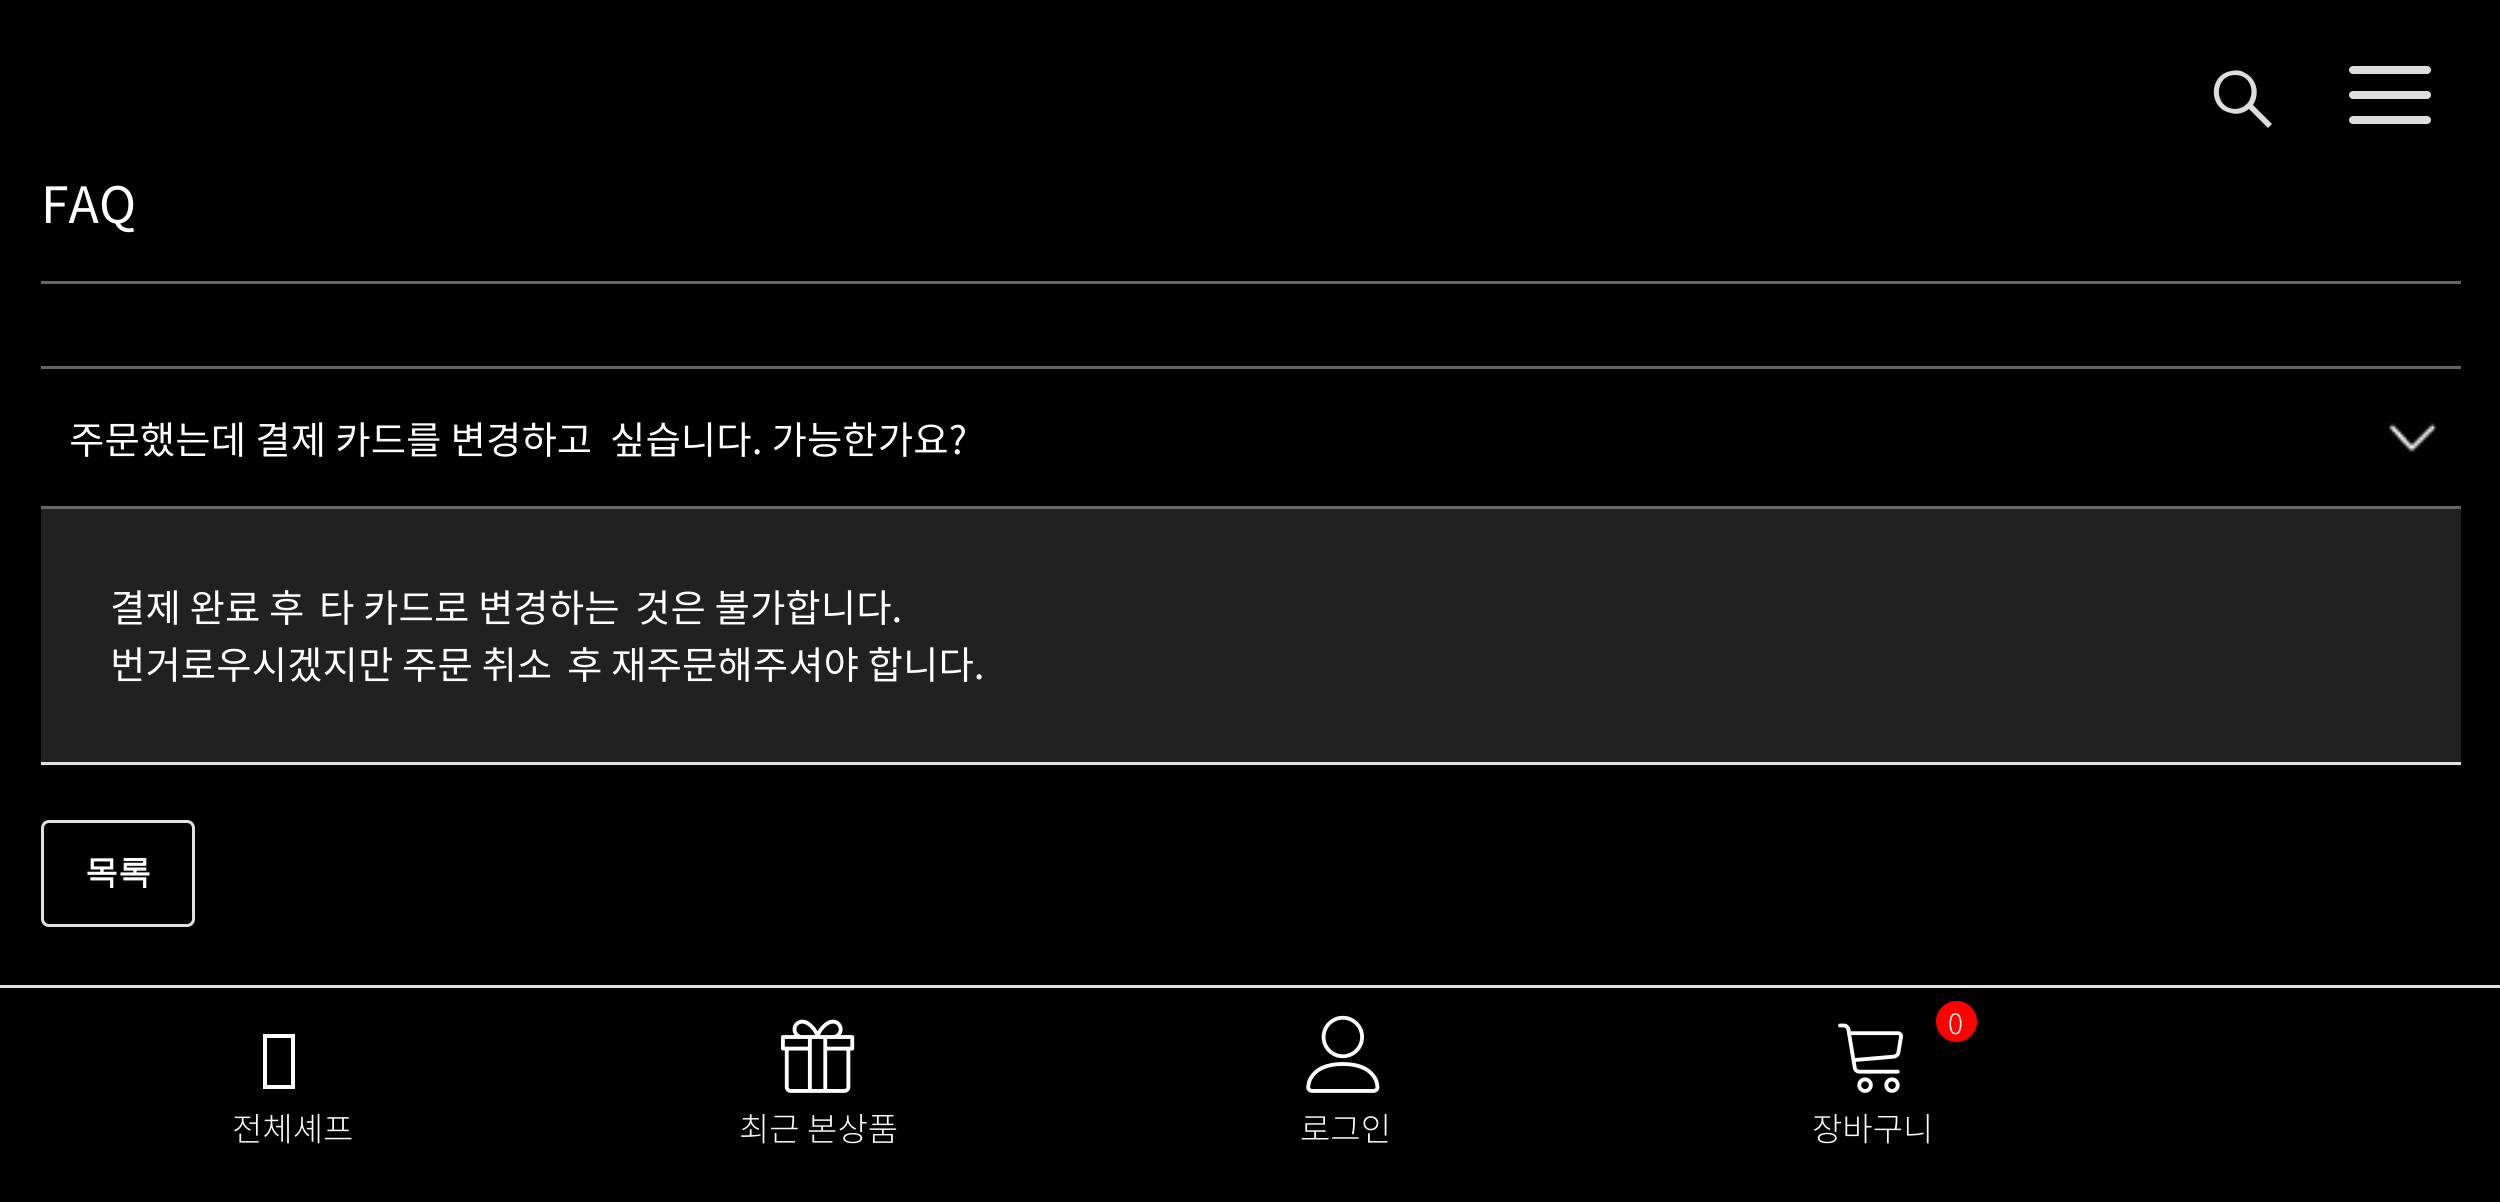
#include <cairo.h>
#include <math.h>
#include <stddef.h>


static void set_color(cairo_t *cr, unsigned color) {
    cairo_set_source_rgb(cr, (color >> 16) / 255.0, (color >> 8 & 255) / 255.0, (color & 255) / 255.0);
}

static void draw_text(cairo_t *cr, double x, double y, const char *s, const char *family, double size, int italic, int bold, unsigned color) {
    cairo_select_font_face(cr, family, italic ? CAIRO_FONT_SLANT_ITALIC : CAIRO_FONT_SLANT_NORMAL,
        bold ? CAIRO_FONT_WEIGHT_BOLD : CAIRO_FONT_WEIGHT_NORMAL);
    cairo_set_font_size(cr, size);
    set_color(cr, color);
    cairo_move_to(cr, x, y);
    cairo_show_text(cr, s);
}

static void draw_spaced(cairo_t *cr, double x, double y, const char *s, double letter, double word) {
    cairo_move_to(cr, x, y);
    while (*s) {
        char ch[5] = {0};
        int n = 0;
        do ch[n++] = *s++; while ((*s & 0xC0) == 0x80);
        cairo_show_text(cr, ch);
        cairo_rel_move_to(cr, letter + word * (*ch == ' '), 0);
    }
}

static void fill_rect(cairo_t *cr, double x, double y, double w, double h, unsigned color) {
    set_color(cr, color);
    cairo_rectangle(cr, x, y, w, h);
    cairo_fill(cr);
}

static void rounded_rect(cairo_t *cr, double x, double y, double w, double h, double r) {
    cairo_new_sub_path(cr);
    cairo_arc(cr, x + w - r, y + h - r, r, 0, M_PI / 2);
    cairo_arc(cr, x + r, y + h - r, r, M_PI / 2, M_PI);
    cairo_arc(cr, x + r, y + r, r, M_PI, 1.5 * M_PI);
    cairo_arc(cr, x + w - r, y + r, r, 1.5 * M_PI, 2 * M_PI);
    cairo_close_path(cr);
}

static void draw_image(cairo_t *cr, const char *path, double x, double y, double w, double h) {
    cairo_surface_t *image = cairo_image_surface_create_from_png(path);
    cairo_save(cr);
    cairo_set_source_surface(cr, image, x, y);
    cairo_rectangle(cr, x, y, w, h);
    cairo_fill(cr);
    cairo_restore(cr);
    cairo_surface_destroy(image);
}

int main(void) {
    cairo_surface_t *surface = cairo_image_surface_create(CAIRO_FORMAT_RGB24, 2500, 1202);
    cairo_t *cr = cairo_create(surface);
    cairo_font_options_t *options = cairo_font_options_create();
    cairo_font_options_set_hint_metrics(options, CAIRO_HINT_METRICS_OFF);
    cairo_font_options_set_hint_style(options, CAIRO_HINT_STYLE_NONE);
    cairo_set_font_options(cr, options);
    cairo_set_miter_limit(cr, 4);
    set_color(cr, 0x000000);
    cairo_paint(cr);
    fill_rect(cr, 41, 281, 2420, 3, 0x666666);
    draw_text(cr, 41, 223, "FAQ", "Noto Sans KR", 50, 0, 0, 0xFFFFFF);
    fill_rect(cr, 41, 366, 2420, 3, 0x666666);
    draw_image(cr, "assets/img1.png", 2389, 423, 48, 29);
    fill_rect(cr, 41, 506, 2420, 3, 0x666666);
    cairo_set_font_size(cr, 38.5);
    set_color(cr, 0xFFFFFF);
    draw_spaced(cr, 69, 454, "주문했는데 결제 카드를 변경하고", 0, 0.5);
    draw_spaced(cr, 610, 454, "싶습니다. 가능한가요?", 0, 0.5);
    fill_rect(cr, 41, 509, 2420, 253, 0x212121);
    fill_rect(cr, 41, 762, 2420, 3, 0xE1E1E1);
    draw_text(cr, 110, 622, "결제 완료 후", "Noto Sans KR", 38.5, 0, 0, 0xFFFFFF);
    draw_text(cr, 319, 622, "타 카드로 변경하는", "Noto Sans KR", 38.5, 0, 0, 0xFFFFFF);
    draw_text(cr, 635, 622, "것은 불가합니다.", "Noto Sans KR", 38.5, 0, 0, 0xFFFFFF);
    draw_text(cr, 110, 679, "번거로우시겠지만 주문 취소", "Noto Sans KR", 38.5, 0, 0, 0xFFFFFF);
    draw_text(cr, 567, 679, "후 재주문해주셔야 합니다.", "Noto Sans KR", 38.5, 0, 0, 0xFFFFFF);
    rounded_rect(cr, 42.5, 821.5, 151, 104, 6.5);
    set_color(cr, 0xE1E1E1);
    cairo_set_line_width(cr, 3);
    cairo_stroke(cr);
    draw_text(cr, 85, 883, "목록", "WenQuanYi Zen Hei", 33, 0, 1, 0xFFFFFF);
    set_color(cr, 0xDDDDDD);
    cairo_new_path(cr);
    cairo_move_to(cr, 2272, 124);
    cairo_line_to(cr, 2253, 105);
    cairo_curve_to(cr, 2260, 94, 2257, 79, 2245, 73);
    cairo_curve_to(cr, 2241, 70, 2236, 70, 2231, 71);
    cairo_curve_to(cr, 2208, 75, 2208, 109, 2231, 113);
    cairo_curve_to(cr, 2237, 115, 2244, 113, 2249, 109);
    cairo_line_to(cr, 2268, 128);
    cairo_close_path(cr);
    cairo_move_to(cr, 2235, 109);
    cairo_curve_to(cr, 2213, 108, 2214, 75, 2235, 75);
    cairo_curve_to(cr, 2257, 75, 2257, 108, 2235, 109);
    cairo_close_path(cr);
    cairo_fill(cr);
    rounded_rect(cr, 2349, 66, 82, 8, 4);
    cairo_fill(cr);
    rounded_rect(cr, 2349, 91, 82, 8, 4);
    cairo_fill(cr);
    rounded_rect(cr, 2349, 116, 82, 8, 4);
    cairo_fill(cr);
    fill_rect(cr, 0, 985, 2500, 3, 0xE1E1E1);
    set_color(cr, 0xFFFFFF);
    cairo_new_path(cr);
    cairo_move_to(cr, 263, 1089);
    cairo_line_to(cr, 263, 1034);
    cairo_line_to(cr, 295, 1034);
    cairo_line_to(cr, 295, 1089);
    cairo_close_path(cr);
    cairo_move_to(cr, 267, 1085);
    cairo_line_to(cr, 291, 1085);
    cairo_line_to(cr, 291, 1038);
    cairo_line_to(cr, 267, 1038);
    cairo_close_path(cr);
    cairo_fill(cr);
    draw_text(cr, 232, 1141, "전체셰프", "Noto Sans KR Light", 33, 0, 0, 0xFFFFFF);
    draw_image(cr, "assets/img2.png", 781, 1019, 74, 74);
    draw_text(cr, 739, 1141, "최근 본상품", "Noto Sans KR Light", 33, 0, 0, 0xFFFFFF);
    draw_image(cr, "assets/img3.png", 1306, 1015, 74, 78);
    draw_text(cr, 1300, 1141, "로그인", "Noto Sans KR Light", 33, 0, 0, 0xFFFFFF);
    draw_image(cr, "assets/img4.png", 1838, 1023, 65, 70);
    set_color(cr, 0xFF0000);
    cairo_arc(cr, 1956.5, 1021.5, 20.5, 0, 2 * M_PI);
    cairo_fill(cr);
    draw_text(cr, 1948, 1034, "0", "Noto Sans KR Light", 28, 0, 0, 0xFFFFFF);
    draw_text(cr, 1812, 1141, "장바구니", "Noto Sans KR Light", 33, 0, 0, 0xFFFFFF);
    cairo_surface_write_to_png(surface, "output.png");
    cairo_font_options_destroy(options);
    cairo_destroy(cr);
    cairo_surface_destroy(surface);
    return 0;
}
